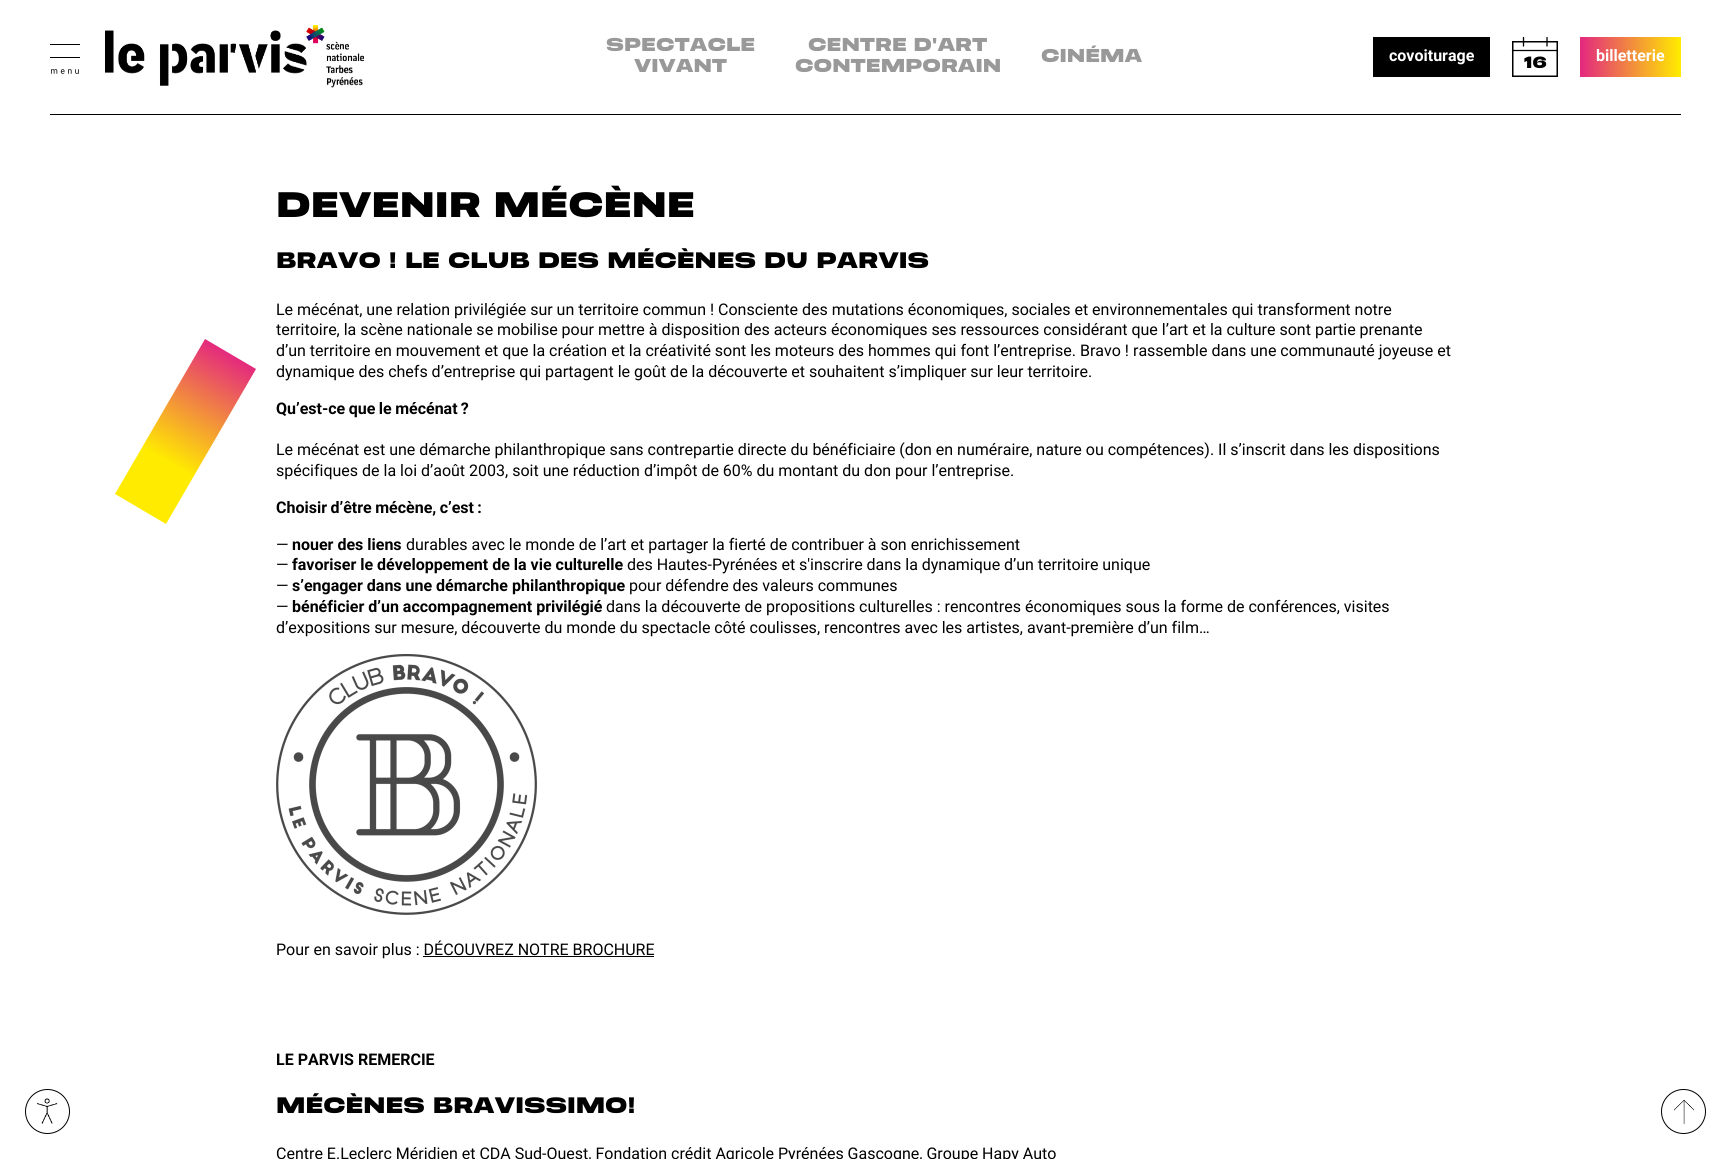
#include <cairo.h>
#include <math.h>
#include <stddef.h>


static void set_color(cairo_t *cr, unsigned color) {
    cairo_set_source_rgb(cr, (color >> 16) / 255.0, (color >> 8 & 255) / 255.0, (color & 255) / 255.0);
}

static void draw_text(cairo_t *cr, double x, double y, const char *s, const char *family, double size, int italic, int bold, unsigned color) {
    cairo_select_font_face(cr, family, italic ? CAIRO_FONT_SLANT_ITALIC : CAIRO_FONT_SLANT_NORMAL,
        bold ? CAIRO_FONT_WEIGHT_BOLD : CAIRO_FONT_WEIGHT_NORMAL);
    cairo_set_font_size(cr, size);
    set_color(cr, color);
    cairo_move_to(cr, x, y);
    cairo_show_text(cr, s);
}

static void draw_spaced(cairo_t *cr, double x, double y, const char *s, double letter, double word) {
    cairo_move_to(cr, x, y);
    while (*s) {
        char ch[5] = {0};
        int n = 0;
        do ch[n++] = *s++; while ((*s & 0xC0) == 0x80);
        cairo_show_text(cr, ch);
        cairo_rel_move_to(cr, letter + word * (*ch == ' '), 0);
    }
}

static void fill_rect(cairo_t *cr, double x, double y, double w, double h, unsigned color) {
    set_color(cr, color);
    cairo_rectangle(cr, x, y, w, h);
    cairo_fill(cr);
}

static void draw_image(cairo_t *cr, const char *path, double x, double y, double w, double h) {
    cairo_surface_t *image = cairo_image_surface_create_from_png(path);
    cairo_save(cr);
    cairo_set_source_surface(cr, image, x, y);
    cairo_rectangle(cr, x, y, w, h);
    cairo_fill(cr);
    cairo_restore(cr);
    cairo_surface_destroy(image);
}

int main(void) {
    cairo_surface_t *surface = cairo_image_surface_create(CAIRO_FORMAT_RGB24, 1731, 1159);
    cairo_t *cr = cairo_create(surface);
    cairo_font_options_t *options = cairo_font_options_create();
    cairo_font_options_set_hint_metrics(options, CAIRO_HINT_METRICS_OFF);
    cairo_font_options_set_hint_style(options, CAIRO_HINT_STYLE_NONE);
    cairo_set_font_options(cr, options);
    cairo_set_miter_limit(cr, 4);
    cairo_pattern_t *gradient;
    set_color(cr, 0xFFFFFF);
    cairo_paint(cr);
    fill_rect(cr, 50, 114, 1631, 1, 0x000000);
    fill_rect(cr, 50, 44, 30, 1, 0x000000);
    fill_rect(cr, 50, 57, 30, 1, 0x000000);
    draw_image(cr, "assets/img1.png", 51, 69, 28, 5);
    draw_image(cr, "assets/img2.png", 105, 25, 259, 63);
    draw_image(cr, "assets/img3.png", 37, 1098, 21, 26);
    cairo_arc(cr, 47.5, 1111.5, 22, 0, 2 * M_PI);
    cairo_set_line_width(cr, 1);
    cairo_stroke(cr);
    draw_text(cr, 606, 51, "SPECTACLE", "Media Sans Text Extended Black", 16, 0, 0, 0x999999);
    draw_text(cr, 634, 72, "VIVANT", "Media Sans Text Extended Black", 16, 0, 0, 0x999999);
    draw_text(cr, 808, 51, "CENTRE D'ART", "Media Sans Text Extended Black", 16, 0, 0, 0x999999);
    draw_text(cr, 795, 72, "CONTEMPORAIN", "Media Sans Text Extended Black", 16, 0, 0, 0x999999);
    draw_text(cr, 1041, 62, "CINÉMA", "Media Sans Text Extended Black", 16, 0, 0, 0x999999);
    fill_rect(cr, 1373, 37, 117, 40, 0x000000);
    draw_text(cr, 1389, 61, "covoiturage", "Roboto", 16, 0, 1, 0xFFFFFF);
    cairo_new_path(cr);
    cairo_move_to(cr, 1512.5, 50.5);
    cairo_line_to(cr, 1557.5, 50.5);
    set_color(cr, 0x000000);
    cairo_set_line_width(cr, 1.3);
    cairo_set_line_cap(cr, CAIRO_LINE_CAP_ROUND);
    cairo_set_line_join(cr, CAIRO_LINE_JOIN_ROUND);
    cairo_stroke(cr);
    cairo_rectangle(cr, 1512.75, 41.75, 44.5, 34.5);
    cairo_set_line_width(cr, 1.5);
    cairo_set_line_cap(cr, CAIRO_LINE_CAP_BUTT);
    cairo_set_line_join(cr, CAIRO_LINE_JOIN_MITER);
    cairo_stroke(cr);
    cairo_new_path(cr);
    cairo_move_to(cr, 1523.5, 37.5);
    cairo_line_to(cr, 1523.5, 46);
    cairo_move_to(cr, 1547, 37.5);
    cairo_line_to(cr, 1547, 46);
    cairo_set_line_width(cr, 1.3);
    cairo_set_line_cap(cr, CAIRO_LINE_CAP_ROUND);
    cairo_set_line_join(cr, CAIRO_LINE_JOIN_ROUND);
    cairo_stroke(cr);
    draw_text(cr, 1524, 68, "16", "Media Sans Text Extended Black", 14, 0, 0, 0x000000);
    gradient = cairo_pattern_create_linear(1482, 57, 1680, 57);
    cairo_pattern_add_color_stop_rgba(gradient, 0, 1, 0.922, 0, 1);
    cairo_pattern_add_color_stop_rgba(gradient, 0.5, 0.894, 0.161, 0.494, 1);
    cairo_pattern_add_color_stop_rgba(gradient, 1, 1, 0.922, 0, 1);
    cairo_set_source(cr, gradient);
    cairo_pattern_destroy(gradient);
    cairo_rectangle(cr, 1580, 37, 100, 40);
    cairo_fill(cr);
    gradient = cairo_pattern_create_linear(1680, 57, 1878, 57);
    cairo_pattern_add_color_stop_rgba(gradient, 0, 1, 0.922, 0, 1);
    cairo_pattern_add_color_stop_rgba(gradient, 0.5, 0.894, 0.161, 0.494, 1);
    cairo_pattern_add_color_stop_rgba(gradient, 1, 1, 0.922, 0, 1);
    cairo_set_source(cr, gradient);
    cairo_pattern_destroy(gradient);
    cairo_rectangle(cr, 1680, 37, 1, 40);
    cairo_fill(cr);
    draw_text(cr, 1596, 61, "billetterie", "Roboto", 16, 0, 1, 0xFFFFFF);
    draw_text(cr, 276, 217, "DEVENIR MÉCÈNE", "Media Sans Text Extended Black", 30.4, 0, 0, 0x000000);
    draw_text(cr, 276, 268, "BRAVO ! LE CLUB DES MÉCÈNES DU PARVIS", "Media Sans Text Extended Black", 19.2, 0, 0, 0x000000);
    gradient = cairo_pattern_create_linear(141, 509, 231, 354);
    cairo_pattern_add_color_stop_rgba(gradient, 0.3, 1, 0.922, 0, 1);
    cairo_pattern_add_color_stop_rgba(gradient, 1, 0.894, 0.161, 0.494, 1);
    cairo_set_source(cr, gradient);
    cairo_pattern_destroy(gradient);
    cairo_new_path(cr);
    cairo_move_to(cr, 115, 494);
    cairo_line_to(cr, 205, 339);
    cairo_line_to(cr, 256, 369);
    cairo_line_to(cr, 166, 524);
    cairo_close_path(cr);
    cairo_fill(cr);
    draw_text(cr, 276, 315, "Le mécénat, une relation privilégiée sur un territoire commun ! Consciente des mutations économiques, sociales et environnementales qui transforment notre", "Roboto", 16, 0, 0, 0x000000);
    draw_text(cr, 276, 335, "territoire, la scène nationale se mobilise pour mettre à disposition des acteurs économiques ses ressources considérant que l’art et la culture sont partie prenante", "Roboto", 16, 0, 0, 0x000000);
    draw_text(cr, 276, 356, "d’un territoire en mouvement et que la création et la créativité sont les moteurs des hommes qui font l’entreprise. Bravo ! rassemble dans une communauté joyeuse et", "Roboto", 16, 0, 0, 0x000000);
    draw_text(cr, 276, 377, "dynamique des chefs d’entreprise qui partagent le goût de la découverte et souhaitent s’impliquer sur leur territoire.", "Roboto", 16, 0, 0, 0x000000);
    cairo_select_font_face(cr, "Roboto", CAIRO_FONT_SLANT_NORMAL, CAIRO_FONT_WEIGHT_BOLD);
    draw_spaced(cr, 276, 414, "Qu’est-ce que le mécénat ?", 0, -0.5);
    draw_text(cr, 276, 455, "Le mécénat est une démarche philanthropique sans contrepartie directe du bénéficiaire (don en numéraire, nature ou compétences). Il s’inscrit dans les dispositions", "Roboto", 16, 0, 0, 0x000000);
    draw_text(cr, 276, 476, "spécifiques de la loi d’août 2003, soit une réduction d’impôt de 60% du montant du don pour l’entreprise.", "Roboto", 16, 0, 0, 0x000000);
    cairo_select_font_face(cr, "Roboto", CAIRO_FONT_SLANT_NORMAL, CAIRO_FONT_WEIGHT_BOLD);
    draw_spaced(cr, 276, 513, "Choisir d’être mécène, c’est :", 0, -0.5);
    draw_text(cr, 276, 550, "—", "Roboto", 16, 0, 0, 0x000000);
    draw_text(cr, 292, 550, "nouer des liens", "Roboto", 16, 0, 1, 0x000000);
    draw_text(cr, 406, 550, "durables avec le monde de l’art et partager la fierté de contribuer à son enrichissement", "Roboto", 16, 0, 0, 0x000000);
    draw_text(cr, 276, 570, "—", "Roboto", 16, 0, 0, 0x000000);
    draw_text(cr, 292, 570, "favoriser le développement de la vie culturelle", "Roboto", 16, 0, 1, 0x000000);
    cairo_select_font_face(cr, "Roboto", CAIRO_FONT_SLANT_NORMAL, CAIRO_FONT_WEIGHT_NORMAL);
    draw_spaced(cr, 627, 570, "des Hautes-Pyrénées et s'inscrire dans la dynamique d’un territoire unique", 0, -0.1);
    draw_text(cr, 276, 591, "—", "Roboto", 16, 0, 0, 0x000000);
    draw_text(cr, 292, 591, "s’engager dans une démarche philanthropique", "Roboto", 16, 0, 1, 0x000000);
    draw_text(cr, 629, 591, "pour défendre des valeurs communes", "Roboto", 16, 0, 0, 0x000000);
    draw_text(cr, 276, 612, "—", "Roboto", 16, 0, 0, 0x000000);
    draw_text(cr, 292, 612, "bénéficier d’un accompagnement privilégié", "Roboto", 16, 0, 1, 0x000000);
    draw_text(cr, 606, 612, "dans la découverte de propositions culturelles : rencontres économiques sous la forme de conférences, visites", "Roboto", 16, 0, 0, 0x000000);
    draw_text(cr, 276, 633, "d’expositions sur mesure, découverte du monde du spectacle côté coulisses, rencontres avec les artistes, avant-première d’un film…", "Roboto", 16, 0, 0, 0x000000);
    draw_image(cr, "assets/img4.png", 276, 654, 261, 261);
    draw_text(cr, 276, 955, "Pour en savoir plus : DÉCOUVREZ NOTRE BROCHURE", "Roboto", 16, 0, 0, 0x000000);
    fill_rect(cr, 423, 956, 231, 1, 0x000000);
    draw_text(cr, 276, 1065, "LE PARVIS REMERCIE", "Roboto", 16, 0, 1, 0x000000);
    draw_text(cr, 276, 1113, "MÉCÈNES BRAVISSIMO!", "Media Sans Text Extended Black", 19.2, 0, 0, 0x000000);
    draw_text(cr, 276, 1159, "Centre E.Leclerc Méridien et CDA Sud-Ouest, Fondation crédit Agricole Pyrénées Gascogne, Groupe Hapy Auto", "Roboto", 16, 0, 0, 0x000000);
    draw_image(cr, "assets/img5.png", 1674, 1099, 21, 25);
    cairo_arc(cr, 1683.5, 1111.5, 22, 0, 2 * M_PI);
    cairo_set_line_width(cr, 1);
    cairo_set_line_cap(cr, CAIRO_LINE_CAP_BUTT);
    cairo_set_line_join(cr, CAIRO_LINE_JOIN_MITER);
    cairo_stroke(cr);
    cairo_surface_write_to_png(surface, "output.png");
    cairo_font_options_destroy(options);
    cairo_destroy(cr);
    cairo_surface_destroy(surface);
    return 0;
}
